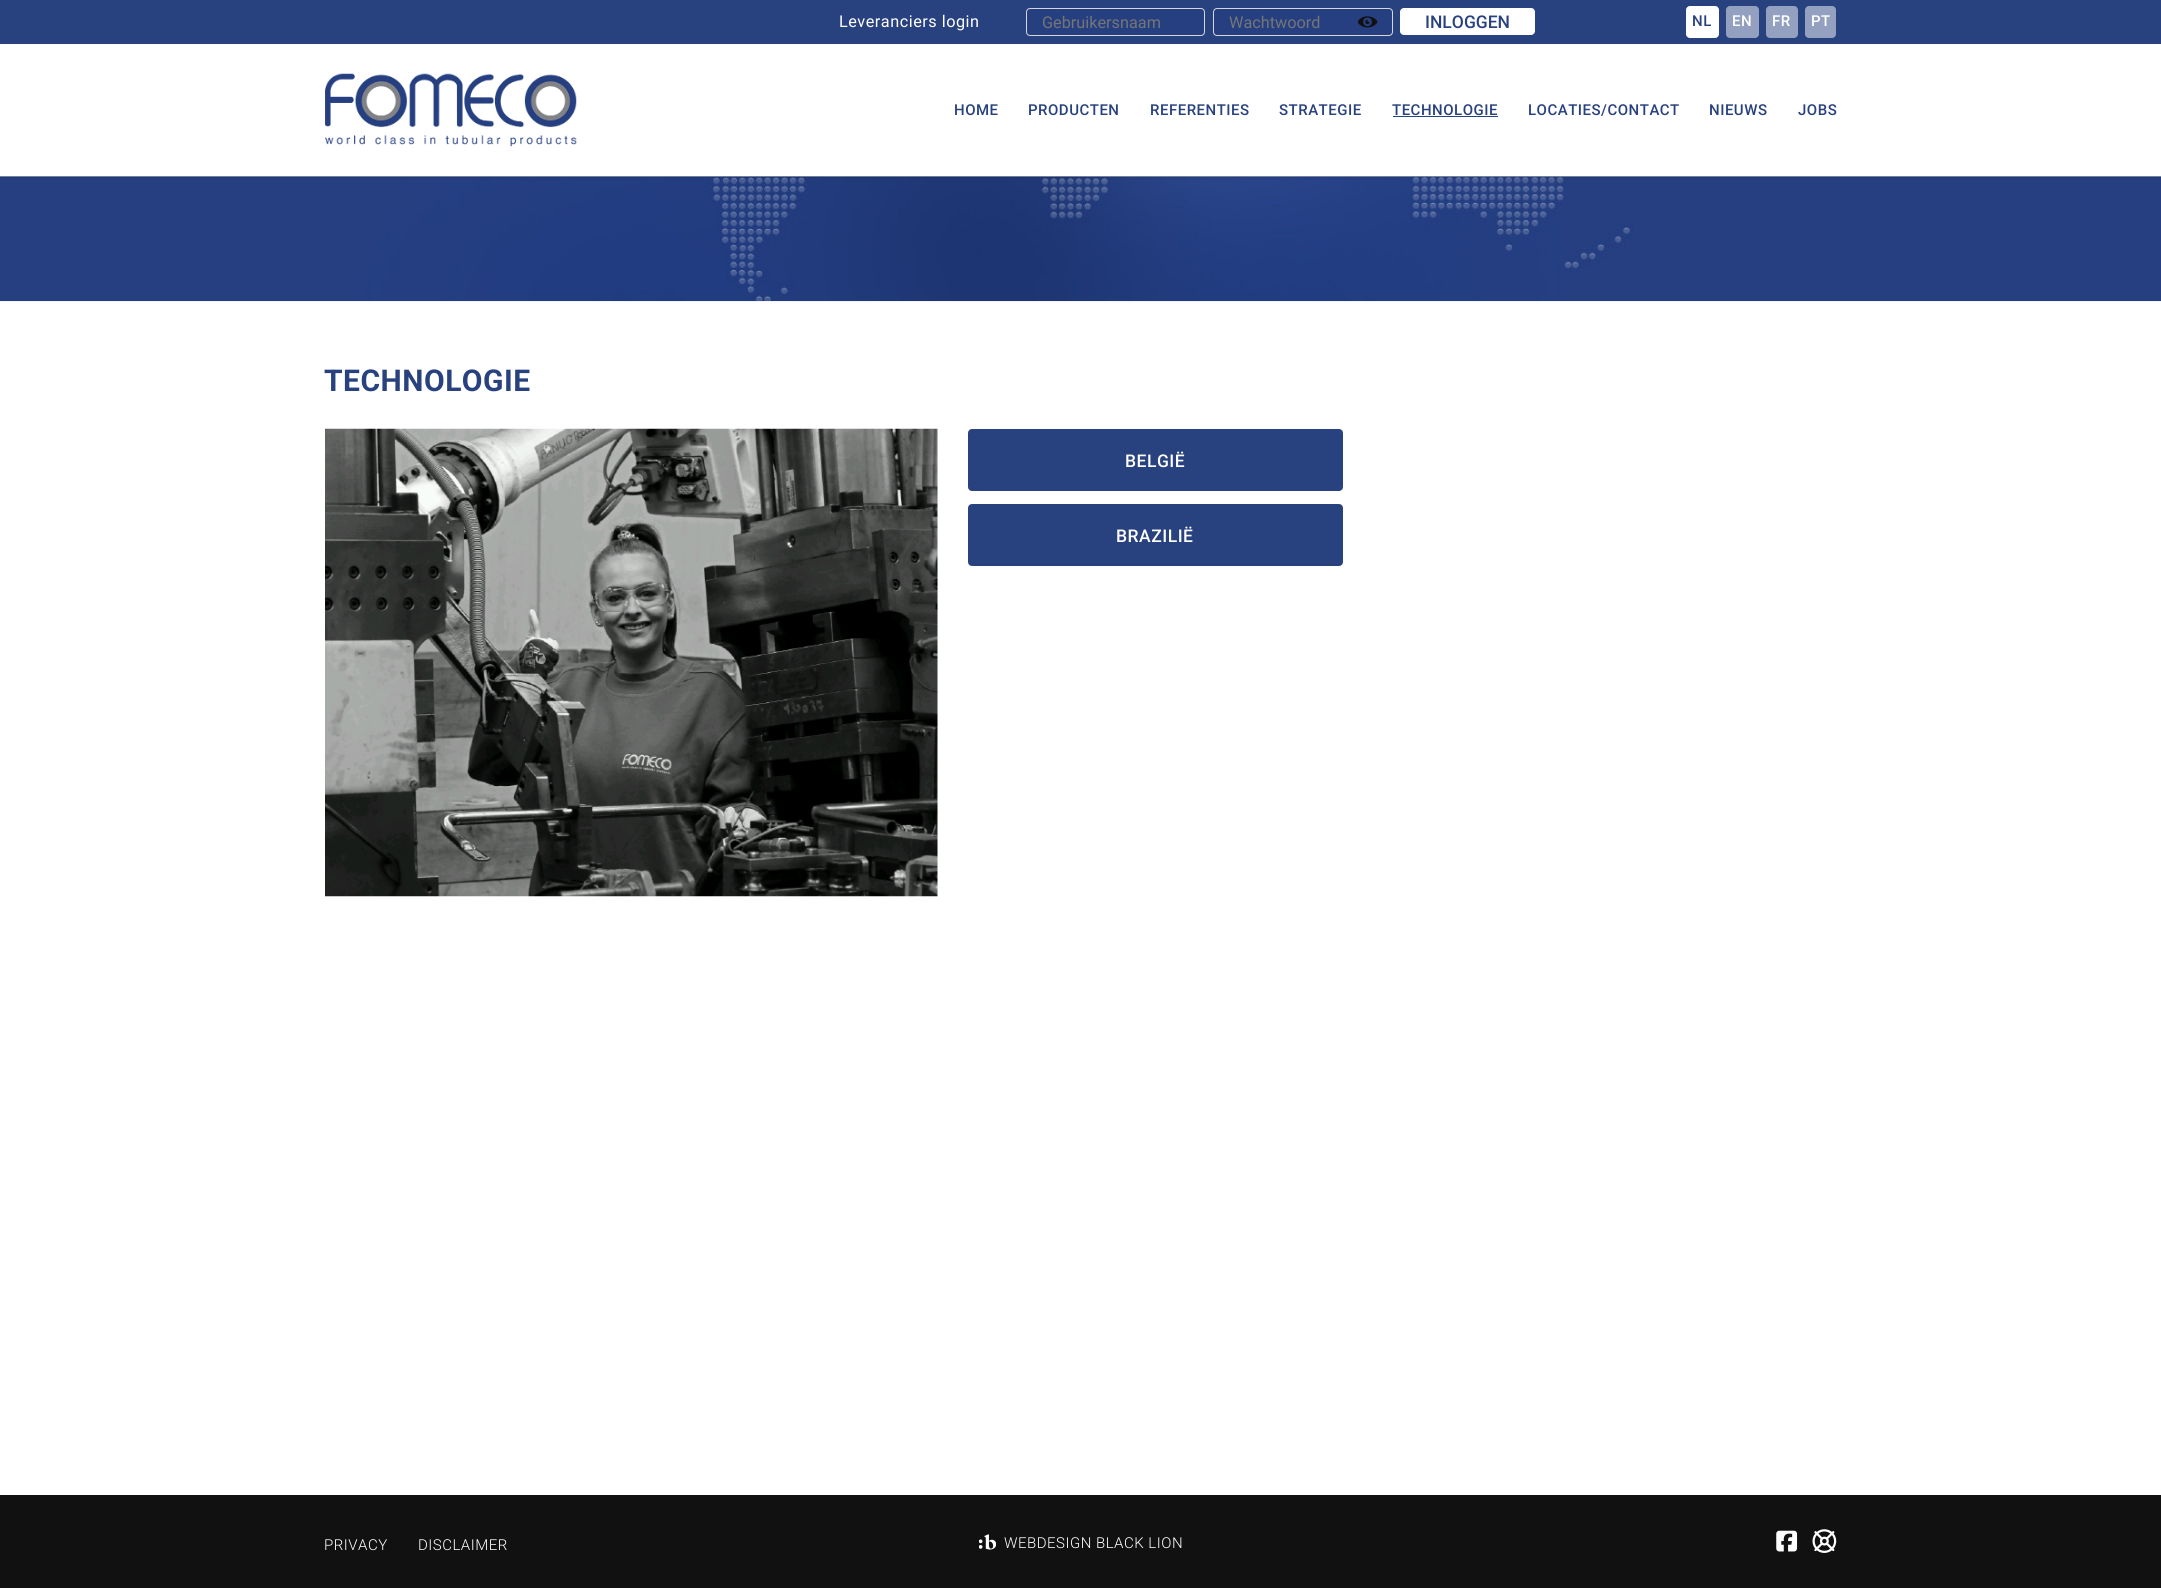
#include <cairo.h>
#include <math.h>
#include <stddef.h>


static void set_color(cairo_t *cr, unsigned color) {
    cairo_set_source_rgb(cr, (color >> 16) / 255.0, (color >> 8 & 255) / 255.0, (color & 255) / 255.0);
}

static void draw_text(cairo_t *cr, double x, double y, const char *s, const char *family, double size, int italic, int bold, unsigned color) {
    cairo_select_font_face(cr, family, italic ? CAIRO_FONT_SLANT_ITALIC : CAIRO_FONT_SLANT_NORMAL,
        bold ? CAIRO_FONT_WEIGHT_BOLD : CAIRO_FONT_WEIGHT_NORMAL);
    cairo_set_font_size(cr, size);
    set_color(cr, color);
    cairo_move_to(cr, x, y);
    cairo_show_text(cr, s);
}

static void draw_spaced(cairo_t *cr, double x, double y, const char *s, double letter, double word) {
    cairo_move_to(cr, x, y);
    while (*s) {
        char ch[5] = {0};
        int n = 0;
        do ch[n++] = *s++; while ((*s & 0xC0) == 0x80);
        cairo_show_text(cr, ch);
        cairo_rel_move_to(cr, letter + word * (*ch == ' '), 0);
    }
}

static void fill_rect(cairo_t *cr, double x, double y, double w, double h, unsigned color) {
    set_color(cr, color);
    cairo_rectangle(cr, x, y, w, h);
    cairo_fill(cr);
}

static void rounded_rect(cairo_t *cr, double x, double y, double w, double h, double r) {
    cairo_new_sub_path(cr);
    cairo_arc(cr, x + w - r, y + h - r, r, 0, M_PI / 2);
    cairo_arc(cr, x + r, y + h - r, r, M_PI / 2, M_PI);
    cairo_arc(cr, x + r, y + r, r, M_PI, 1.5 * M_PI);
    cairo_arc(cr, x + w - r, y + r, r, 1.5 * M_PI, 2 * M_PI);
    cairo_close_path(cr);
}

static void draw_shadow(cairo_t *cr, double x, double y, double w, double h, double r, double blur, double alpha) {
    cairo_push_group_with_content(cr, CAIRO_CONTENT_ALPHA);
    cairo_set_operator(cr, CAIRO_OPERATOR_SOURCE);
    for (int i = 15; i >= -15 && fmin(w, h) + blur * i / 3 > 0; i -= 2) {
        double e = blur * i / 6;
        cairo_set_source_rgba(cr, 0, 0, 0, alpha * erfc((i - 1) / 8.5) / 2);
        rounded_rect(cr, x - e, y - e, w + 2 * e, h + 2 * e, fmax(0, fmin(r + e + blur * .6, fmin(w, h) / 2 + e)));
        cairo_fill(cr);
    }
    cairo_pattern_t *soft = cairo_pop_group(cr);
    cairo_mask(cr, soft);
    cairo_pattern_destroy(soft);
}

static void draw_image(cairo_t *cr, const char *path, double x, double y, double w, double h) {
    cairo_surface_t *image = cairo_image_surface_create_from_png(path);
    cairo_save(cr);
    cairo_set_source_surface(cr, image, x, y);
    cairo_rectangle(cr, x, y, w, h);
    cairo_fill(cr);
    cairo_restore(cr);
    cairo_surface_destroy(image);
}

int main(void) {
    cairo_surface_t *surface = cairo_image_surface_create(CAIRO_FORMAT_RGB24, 2161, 1588);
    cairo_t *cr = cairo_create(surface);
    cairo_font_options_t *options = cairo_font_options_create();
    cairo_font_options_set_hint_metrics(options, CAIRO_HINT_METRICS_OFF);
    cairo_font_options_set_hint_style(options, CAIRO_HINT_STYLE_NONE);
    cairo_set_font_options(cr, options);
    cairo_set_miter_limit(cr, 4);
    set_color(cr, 0xFFFFFF);
    cairo_paint(cr);
    draw_image(cr, "assets/img3.png", 0, 176, 2161, 126);
    cairo_save(cr);
    cairo_rectangle(cr, 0, 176, 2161, 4);
    cairo_clip(cr);
    set_color(cr, 0x000000);
    draw_shadow(cr, 0, 0, 2161, 176, 0, 2.5, 0.3);
    cairo_restore(cr);
    fill_rect(cr, 0, 0, 2161, 44, 0x28417F);
    cairo_select_font_face(cr, "Roboto", CAIRO_FONT_SLANT_NORMAL, CAIRO_FONT_WEIGHT_NORMAL);
    cairo_set_font_size(cr, 16.25);
    set_color(cr, 0xFFFFFF);
    draw_spaced(cr, 839, 27, "Leveranciers login", 0.5, 0);
    set_color(cr, 0x253F81);
    rounded_rect(cr, 1026.5, 8.5, 178, 27, 3.5);
    cairo_fill_preserve(cr);
    set_color(cr, 0xD6D6D6);
    cairo_set_line_width(cr, 1);
    cairo_stroke(cr);
    draw_text(cr, 1042, 28, "Gebruikersnaam", "Roboto", 16.25, 0, 0, 0x757575);
    set_color(cr, 0x253F81);
    rounded_rect(cr, 1213.5, 8.5, 179, 27, 3.5);
    cairo_fill_preserve(cr);
    set_color(cr, 0xD6D6D6);
    cairo_stroke(cr);
    draw_text(cr, 1229, 28, "Wachtwoord", "Roboto", 16.25, 0, 0, 0x757575);
    draw_image(cr, "assets/img1.png", 1358, 16, 20, 12);
    set_color(cr, 0xFFFFFF);
    rounded_rect(cr, 1400, 8, 135, 27, 4);
    cairo_fill(cr);
    draw_text(cr, 1425, 28, "INLOGGEN", "Roboto Medium", 17.5, 0, 0, 0x28417F);
    set_color(cr, 0xFFFFFF);
    rounded_rect(cr, 1686, 6, 33, 32, 4);
    cairo_fill(cr);
    cairo_set_font_size(cr, 15);
    set_color(cr, 0x28417F);
    draw_spaced(cr, 1692, 26, "NL", 0.5, 0);
    set_color(cr, 0x94A0BF);
    rounded_rect(cr, 1726, 6, 33, 32, 4);
    cairo_fill(cr);
    set_color(cr, 0xFFFFFF);
    draw_spaced(cr, 1732, 26, "EN", 0.5, 0);
    set_color(cr, 0x94A0BF);
    rounded_rect(cr, 1766, 6, 32, 32, 4);
    cairo_fill(cr);
    set_color(cr, 0xFFFFFF);
    draw_spaced(cr, 1772, 26, "FR", 0.5, 0);
    set_color(cr, 0x94A0BF);
    rounded_rect(cr, 1805, 6, 31, 32, 4);
    cairo_fill(cr);
    set_color(cr, 0xFFFFFF);
    draw_spaced(cr, 1811, 26, "PT", 0.5, 0);
    draw_image(cr, "assets/img2.png", 325, 73, 252, 74);
    set_color(cr, 0x28417F);
    draw_spaced(cr, 954, 115, "HOME", 0.5, 0);
    draw_spaced(cr, 1028, 115, "PRODUCTEN", 0.5, 0);
    draw_spaced(cr, 1150, 115, "REFERENTIES", 0.5, 0);
    draw_spaced(cr, 1279, 115, "STRATEGIE", 0.5, 0);
    draw_spaced(cr, 1392, 115, "TECHNOLOGIE", 0.5, 0);
    fill_rect(cr, 1393, 116, 105, 1, 0x28417F);
    draw_spaced(cr, 1528, 115, "LOCATIES/CONTACT", 0.5, 0);
    draw_spaced(cr, 1709, 115, "NIEUWS", 0.5, 0);
    draw_spaced(cr, 1798, 115, "JOBS", 0.5, 0);
    cairo_select_font_face(cr, "Roboto", CAIRO_FONT_SLANT_NORMAL, CAIRO_FONT_WEIGHT_BOLD);
    cairo_set_font_size(cr, 30);
    draw_spaced(cr, 324, 391, "TECHNOLOGIE", 0.5, 0);
    draw_image(cr, "assets/img4.png", 325, 428, 613, 469);
    rounded_rect(cr, 969.5, 430.5, 372, 59, 2.5);
    cairo_fill_preserve(cr);
    cairo_set_line_width(cr, 3);
    cairo_stroke(cr);
    cairo_select_font_face(cr, "Roboto Medium", CAIRO_FONT_SLANT_NORMAL, CAIRO_FONT_WEIGHT_NORMAL);
    cairo_set_font_size(cr, 17.5);
    set_color(cr, 0xFFFFFF);
    draw_spaced(cr, 1125, 467, "BELGIË", 0.5, 0);
    set_color(cr, 0x28417F);
    rounded_rect(cr, 969.5, 505.5, 372, 59, 2.5);
    cairo_fill_preserve(cr);
    cairo_stroke(cr);
    set_color(cr, 0xFFFFFF);
    draw_spaced(cr, 1116, 542, "BRAZILIË", 0.5, 0);
    fill_rect(cr, 0, 1495, 2161, 93, 0x111111);
    cairo_select_font_face(cr, "Roboto Light", CAIRO_FONT_SLANT_NORMAL, CAIRO_FONT_WEIGHT_NORMAL);
    cairo_set_font_size(cr, 15);
    set_color(cr, 0xFFFFFF);
    draw_spaced(cr, 324, 1550, "PRIVACY", 0.5, 0);
    draw_spaced(cr, 418, 1550, "DISCLAIMER", 0.5, 0);
    draw_image(cr, "assets/img5.png", 979, 1534, 17, 16);
    draw_spaced(cr, 1004, 1548, "WEBDESIGN BLACK LION", 0.5, 0);
    draw_image(cr, "assets/img6.png", 1776, 1530, 22, 22);
    draw_image(cr, "assets/img7.png", 1812, 1529, 25, 24);
    cairo_surface_write_to_png(surface, "output.png");
    cairo_font_options_destroy(options);
    cairo_destroy(cr);
    cairo_surface_destroy(surface);
    return 0;
}
